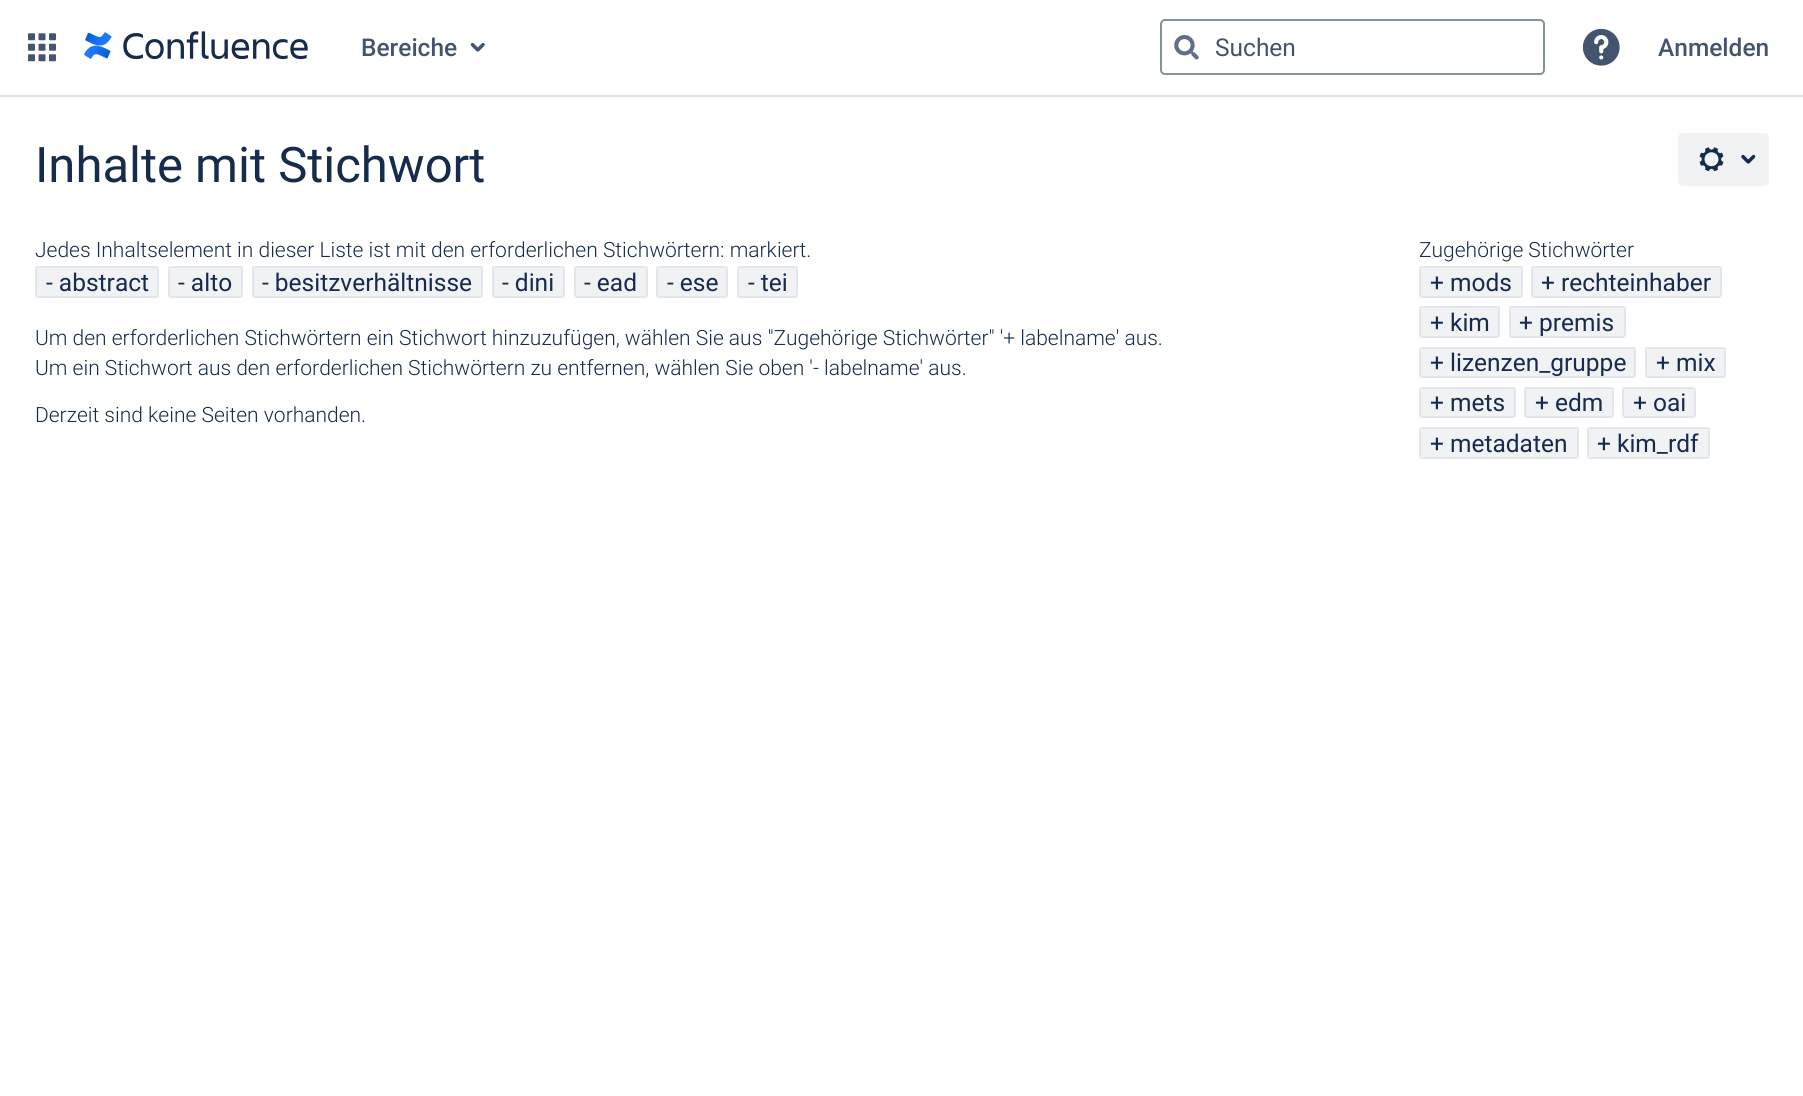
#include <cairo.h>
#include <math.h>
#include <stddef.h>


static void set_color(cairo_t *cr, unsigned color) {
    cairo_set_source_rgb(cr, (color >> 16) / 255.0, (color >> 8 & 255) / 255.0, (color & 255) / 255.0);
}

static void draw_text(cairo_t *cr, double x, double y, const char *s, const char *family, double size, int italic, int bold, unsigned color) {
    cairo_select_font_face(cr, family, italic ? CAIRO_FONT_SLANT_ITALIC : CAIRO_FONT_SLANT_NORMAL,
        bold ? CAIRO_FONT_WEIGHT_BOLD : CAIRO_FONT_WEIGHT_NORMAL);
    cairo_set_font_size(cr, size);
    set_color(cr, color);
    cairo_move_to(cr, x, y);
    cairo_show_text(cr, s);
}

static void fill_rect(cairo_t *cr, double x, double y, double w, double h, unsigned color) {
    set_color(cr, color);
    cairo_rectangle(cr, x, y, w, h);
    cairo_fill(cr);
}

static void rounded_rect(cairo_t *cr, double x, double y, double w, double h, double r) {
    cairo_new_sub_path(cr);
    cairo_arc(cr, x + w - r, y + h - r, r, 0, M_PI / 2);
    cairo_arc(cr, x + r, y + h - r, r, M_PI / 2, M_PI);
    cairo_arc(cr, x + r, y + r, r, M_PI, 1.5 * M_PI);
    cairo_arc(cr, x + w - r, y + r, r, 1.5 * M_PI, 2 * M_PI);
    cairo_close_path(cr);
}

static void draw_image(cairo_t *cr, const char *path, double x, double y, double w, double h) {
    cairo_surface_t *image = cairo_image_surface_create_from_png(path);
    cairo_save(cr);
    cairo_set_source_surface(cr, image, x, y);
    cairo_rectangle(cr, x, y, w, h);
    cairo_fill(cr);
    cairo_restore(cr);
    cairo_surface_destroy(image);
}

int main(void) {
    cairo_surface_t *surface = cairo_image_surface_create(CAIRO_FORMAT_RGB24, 1803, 1096);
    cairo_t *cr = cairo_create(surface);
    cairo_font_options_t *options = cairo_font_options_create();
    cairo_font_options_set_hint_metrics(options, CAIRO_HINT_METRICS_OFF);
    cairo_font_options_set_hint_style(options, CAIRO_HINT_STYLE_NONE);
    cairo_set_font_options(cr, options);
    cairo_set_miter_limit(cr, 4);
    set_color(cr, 0xFFFFFF);
    cairo_paint(cr);
    fill_rect(cr, 0, 95, 1803, 2, 0xDDE0E5);
    draw_image(cr, "assets/img1.png", 28, 33, 28, 29);
    draw_image(cr, "assets/img2.png", 84, 31, 224, 29);
    draw_text(cr, 361, 56, "Bereiche", "Roboto Medium", 24.5, 0, 0, 0x44546F);
    draw_image(cr, "assets/img3.png", 470, 42, 15, 10);
    rounded_rect(cr, 1161, 20, 383, 54, 4);
    set_color(cr, 0x8590A2);
    cairo_stroke(cr);
    draw_image(cr, "assets/img4.png", 1174, 35, 25, 25);
    draw_text(cr, 1215, 56, "Suchen", "Roboto", 24.5, 0, 0, 0x44546F);
    draw_image(cr, "assets/img5.png", 1582, 28, 38, 38);
    draw_text(cr, 1658, 56, "Anmelden", "Roboto Medium", 24.5, 0, 0, 0x44546F);
    draw_text(cr, 35, 182, "Inhalte mit Stichwort", "Roboto", 49, 0, 0, 0x172B4D);
    set_color(cr, 0xF0F2F4);
    rounded_rect(cr, 1678, 133, 91, 53, 5);
    cairo_fill(cr);
    draw_image(cr, "assets/img6.png", 1699, 147, 25, 25);
    draw_image(cr, "assets/img7.png", 1741, 154, 15, 10);
    draw_text(cr, 35, 257, "Jedes Inhaltselement in dieser Liste ist mit den erforderlichen Stichwörtern: markiert.", "Roboto Light", 21, 0, 0, 0x172B4D);
    set_color(cr, 0xF0F2F4);
    rounded_rect(cr, 35, 266, 124, 32, 5);
    cairo_fill(cr);
    cairo_rectangle(cr, 36, 267, 122, 30);
    cairo_set_source_rgba(cr, 0.035, 0.118, 0.259, 0.06);
    cairo_stroke(cr);
    draw_text(cr, 46, 291, "- abstract", "Roboto", 24.5, 0, 0, 0x172B4D);
    set_color(cr, 0xF0F2F4);
    rounded_rect(cr, 168, 266, 75, 32, 5);
    cairo_fill(cr);
    cairo_rectangle(cr, 169, 267, 73, 30);
    cairo_set_source_rgba(cr, 0.035, 0.118, 0.259, 0.06);
    cairo_stroke(cr);
    draw_text(cr, 178, 291, "- alto", "Roboto", 24.5, 0, 0, 0x172B4D);
    set_color(cr, 0xF0F2F4);
    rounded_rect(cr, 252, 266, 231, 32, 5);
    cairo_fill(cr);
    cairo_rectangle(cr, 253, 267, 229, 30);
    cairo_set_source_rgba(cr, 0.035, 0.118, 0.259, 0.06);
    cairo_stroke(cr);
    draw_text(cr, 262, 291, "- besitzverhältnisse", "Roboto", 24.5, 0, 0, 0x172B4D);
    set_color(cr, 0xF0F2F4);
    rounded_rect(cr, 492, 266, 73, 32, 5);
    cairo_fill(cr);
    cairo_rectangle(cr, 493, 267, 71, 30);
    cairo_set_source_rgba(cr, 0.035, 0.118, 0.259, 0.06);
    cairo_stroke(cr);
    draw_text(cr, 502, 291, "- dini", "Roboto", 24.5, 0, 0, 0x172B4D);
    set_color(cr, 0xF0F2F4);
    rounded_rect(cr, 574, 266, 74, 32, 5);
    cairo_fill(cr);
    cairo_rectangle(cr, 575, 267, 72, 30);
    cairo_set_source_rgba(cr, 0.035, 0.118, 0.259, 0.06);
    cairo_stroke(cr);
    draw_text(cr, 584, 291, "- ead", "Roboto", 24.5, 0, 0, 0x172B4D);
    set_color(cr, 0xF0F2F4);
    rounded_rect(cr, 656, 266, 72, 32, 5);
    cairo_fill(cr);
    cairo_rectangle(cr, 657, 267, 70, 30);
    cairo_set_source_rgba(cr, 0.035, 0.118, 0.259, 0.06);
    cairo_stroke(cr);
    draw_text(cr, 667, 291, "- ese", "Roboto", 24.5, 0, 0, 0x172B4D);
    set_color(cr, 0xF0F2F4);
    rounded_rect(cr, 737, 266, 61, 32, 5);
    cairo_fill(cr);
    cairo_rectangle(cr, 738, 267, 59, 30);
    cairo_set_source_rgba(cr, 0.035, 0.118, 0.259, 0.06);
    cairo_stroke(cr);
    draw_text(cr, 748, 291, "- tei", "Roboto", 24.5, 0, 0, 0x172B4D);
    draw_text(cr, 35, 345, "Um den erforderlichen Stichwörtern ein Stichwort hinzuzufügen, wählen Sie aus \"Zugehörige Stichwörter\" '+ labelname' aus.", "Roboto Light", 21, 0, 0, 0x172B4D);
    draw_text(cr, 35, 375, "Um ein Stichwort aus den erforderlichen Stichwörtern zu entfernen, wählen Sie oben '- labelname' aus.", "Roboto Light", 21, 0, 0, 0x172B4D);
    draw_text(cr, 35, 422, "Derzeit sind keine Seiten vorhanden.", "Roboto Light", 21, 0, 0, 0x172B4D);
    draw_text(cr, 1419, 257, "Zugehörige Stichwörter", "Roboto Light", 21, 0, 0, 0x172B4D);
    set_color(cr, 0xF0F2F4);
    rounded_rect(cr, 1419, 266, 104, 32, 5);
    cairo_fill(cr);
    cairo_rectangle(cr, 1420, 267, 102, 30);
    cairo_set_source_rgba(cr, 0.035, 0.118, 0.259, 0.06);
    cairo_stroke(cr);
    draw_text(cr, 1430, 291, "+ mods", "Roboto", 24.5, 0, 0, 0x172B4D);
    set_color(cr, 0xF0F2F4);
    rounded_rect(cr, 1531, 266, 191, 32, 5);
    cairo_fill(cr);
    cairo_rectangle(cr, 1532, 267, 189, 30);
    cairo_set_source_rgba(cr, 0.035, 0.118, 0.259, 0.06);
    cairo_stroke(cr);
    draw_text(cr, 1541, 291, "+ rechteinhaber", "Roboto", 24.5, 0, 0, 0x172B4D);
    set_color(cr, 0xF0F2F4);
    rounded_rect(cr, 1419, 306, 81, 32, 5);
    cairo_fill(cr);
    cairo_rectangle(cr, 1420, 307, 79, 30);
    cairo_set_source_rgba(cr, 0.035, 0.118, 0.259, 0.06);
    cairo_stroke(cr);
    draw_text(cr, 1430, 331, "+ kim", "Roboto", 24.5, 0, 0, 0x172B4D);
    set_color(cr, 0xF0F2F4);
    rounded_rect(cr, 1509, 306, 117, 32, 5);
    cairo_fill(cr);
    cairo_rectangle(cr, 1510, 307, 115, 30);
    cairo_set_source_rgba(cr, 0.035, 0.118, 0.259, 0.06);
    cairo_stroke(cr);
    draw_text(cr, 1519, 331, "+ premis", "Roboto", 24.5, 0, 0, 0x172B4D);
    set_color(cr, 0xF0F2F4);
    rounded_rect(cr, 1419, 347, 217, 31, 5);
    cairo_fill(cr);
    cairo_rectangle(cr, 1420, 348, 215, 29);
    cairo_set_source_rgba(cr, 0.035, 0.118, 0.259, 0.06);
    cairo_stroke(cr);
    draw_text(cr, 1430, 371, "+ lizenzen_gruppe", "Roboto", 24.5, 0, 0, 0x172B4D);
    set_color(cr, 0xF0F2F4);
    rounded_rect(cr, 1645, 347, 81, 31, 5);
    cairo_fill(cr);
    cairo_rectangle(cr, 1646, 348, 79, 29);
    cairo_set_source_rgba(cr, 0.035, 0.118, 0.259, 0.06);
    cairo_stroke(cr);
    draw_text(cr, 1656, 371, "+ mix", "Roboto", 24.5, 0, 0, 0x172B4D);
    set_color(cr, 0xF0F2F4);
    rounded_rect(cr, 1419, 387, 97, 31, 5);
    cairo_fill(cr);
    cairo_rectangle(cr, 1420, 388, 95, 29);
    cairo_set_source_rgba(cr, 0.035, 0.118, 0.259, 0.06);
    cairo_stroke(cr);
    draw_text(cr, 1430, 411, "+ mets", "Roboto", 24.5, 0, 0, 0x172B4D);
    set_color(cr, 0xF0F2F4);
    rounded_rect(cr, 1524, 387, 90, 31, 5);
    cairo_fill(cr);
    cairo_rectangle(cr, 1525, 388, 88, 29);
    cairo_set_source_rgba(cr, 0.035, 0.118, 0.259, 0.06);
    cairo_stroke(cr);
    draw_text(cr, 1535, 411, "+ edm", "Roboto", 24.5, 0, 0, 0x172B4D);
    set_color(cr, 0xF0F2F4);
    rounded_rect(cr, 1622, 387, 74, 31, 5);
    cairo_fill(cr);
    cairo_rectangle(cr, 1623, 388, 72, 29);
    cairo_set_source_rgba(cr, 0.035, 0.118, 0.259, 0.06);
    cairo_stroke(cr);
    draw_text(cr, 1633, 411, "+ oai", "Roboto", 24.5, 0, 0, 0x172B4D);
    set_color(cr, 0xF0F2F4);
    rounded_rect(cr, 1419, 427, 160, 32, 5);
    cairo_fill(cr);
    cairo_rectangle(cr, 1420, 428, 158, 30);
    cairo_set_source_rgba(cr, 0.035, 0.118, 0.259, 0.06);
    cairo_stroke(cr);
    draw_text(cr, 1430, 452, "+ metadaten", "Roboto", 24.5, 0, 0, 0x172B4D);
    set_color(cr, 0xF0F2F4);
    rounded_rect(cr, 1587, 427, 123, 32, 5);
    cairo_fill(cr);
    cairo_rectangle(cr, 1588, 428, 121, 30);
    cairo_set_source_rgba(cr, 0.035, 0.118, 0.259, 0.06);
    cairo_stroke(cr);
    draw_text(cr, 1597, 452, "+ kim_rdf", "Roboto", 24.5, 0, 0, 0x172B4D);
    cairo_surface_write_to_png(surface, "output.png");
    cairo_font_options_destroy(options);
    cairo_destroy(cr);
    cairo_surface_destroy(surface);
    return 0;
}
